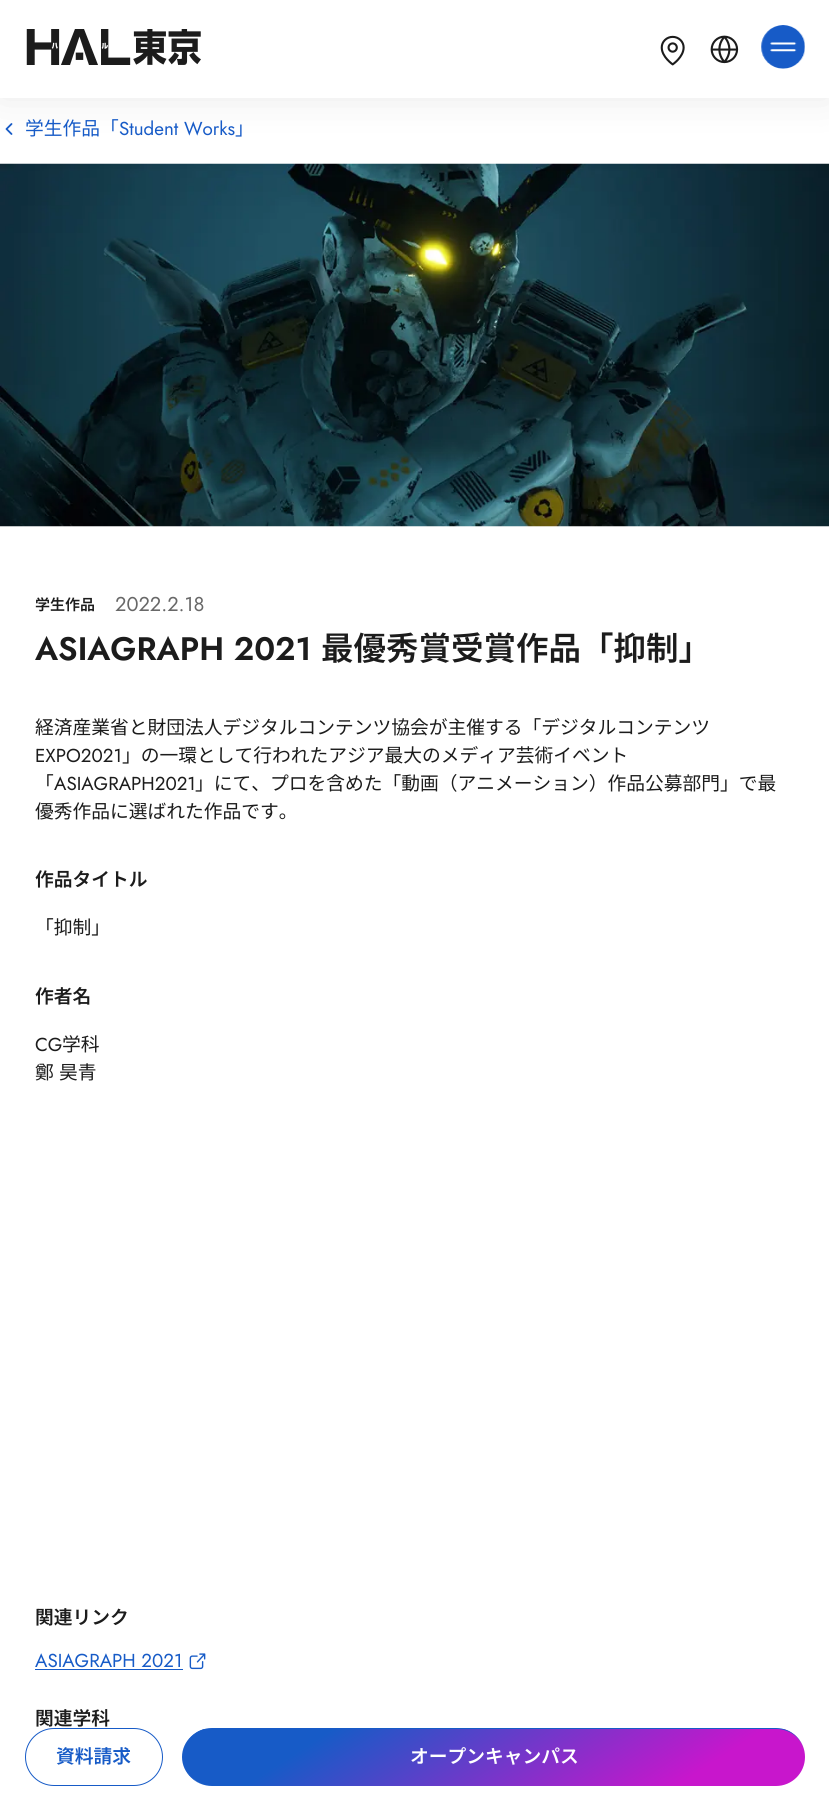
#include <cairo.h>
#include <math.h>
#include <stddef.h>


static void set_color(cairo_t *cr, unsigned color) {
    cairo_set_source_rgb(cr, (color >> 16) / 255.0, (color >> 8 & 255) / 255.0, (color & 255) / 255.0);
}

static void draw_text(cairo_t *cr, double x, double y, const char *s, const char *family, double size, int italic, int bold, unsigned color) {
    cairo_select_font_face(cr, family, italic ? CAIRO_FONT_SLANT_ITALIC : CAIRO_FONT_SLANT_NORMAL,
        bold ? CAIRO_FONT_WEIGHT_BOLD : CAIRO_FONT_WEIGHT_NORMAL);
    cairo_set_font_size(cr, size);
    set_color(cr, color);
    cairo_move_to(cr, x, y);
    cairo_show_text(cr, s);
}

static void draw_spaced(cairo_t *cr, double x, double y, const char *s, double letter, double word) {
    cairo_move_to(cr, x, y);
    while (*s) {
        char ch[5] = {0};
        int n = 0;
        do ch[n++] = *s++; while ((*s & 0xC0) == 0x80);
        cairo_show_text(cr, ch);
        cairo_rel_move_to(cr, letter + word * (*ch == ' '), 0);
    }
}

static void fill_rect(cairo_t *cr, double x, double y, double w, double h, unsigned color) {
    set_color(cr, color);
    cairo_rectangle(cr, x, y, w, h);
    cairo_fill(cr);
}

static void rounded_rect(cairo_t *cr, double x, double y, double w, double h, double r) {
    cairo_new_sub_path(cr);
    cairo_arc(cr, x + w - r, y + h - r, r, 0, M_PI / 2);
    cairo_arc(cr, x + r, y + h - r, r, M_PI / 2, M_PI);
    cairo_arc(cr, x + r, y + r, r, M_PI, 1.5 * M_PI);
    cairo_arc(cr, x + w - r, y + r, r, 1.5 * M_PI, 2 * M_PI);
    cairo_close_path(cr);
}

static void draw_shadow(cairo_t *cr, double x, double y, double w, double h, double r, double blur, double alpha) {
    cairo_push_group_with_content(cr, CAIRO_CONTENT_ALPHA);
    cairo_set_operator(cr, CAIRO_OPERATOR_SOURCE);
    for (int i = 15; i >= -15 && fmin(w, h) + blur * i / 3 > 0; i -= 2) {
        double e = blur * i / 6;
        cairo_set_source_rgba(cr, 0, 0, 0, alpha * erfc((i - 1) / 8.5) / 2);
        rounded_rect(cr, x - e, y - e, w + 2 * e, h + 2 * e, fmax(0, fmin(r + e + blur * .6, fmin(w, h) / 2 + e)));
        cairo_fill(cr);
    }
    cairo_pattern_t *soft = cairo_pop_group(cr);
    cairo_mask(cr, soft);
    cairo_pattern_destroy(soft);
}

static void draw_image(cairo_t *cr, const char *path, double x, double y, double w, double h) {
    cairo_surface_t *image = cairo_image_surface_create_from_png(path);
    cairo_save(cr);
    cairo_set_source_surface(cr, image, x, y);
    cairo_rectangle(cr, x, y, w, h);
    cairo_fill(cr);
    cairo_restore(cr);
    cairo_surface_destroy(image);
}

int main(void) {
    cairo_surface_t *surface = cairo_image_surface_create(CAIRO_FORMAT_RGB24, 829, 1807);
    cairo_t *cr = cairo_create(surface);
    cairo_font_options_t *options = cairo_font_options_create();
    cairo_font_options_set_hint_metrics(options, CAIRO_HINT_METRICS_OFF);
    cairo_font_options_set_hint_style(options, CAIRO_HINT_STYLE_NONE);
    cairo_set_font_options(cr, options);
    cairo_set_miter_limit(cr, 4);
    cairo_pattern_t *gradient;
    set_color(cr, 0xFFFFFF);
    cairo_paint(cr);
    cairo_new_path(cr);
    cairo_move_to(cr, 11.5, 134);
    cairo_line_to(cr, 6.5, 129);
    cairo_line_to(cr, 11.5, 124);
    set_color(cr, 0x175BC7);
    cairo_set_line_width(cr, 1.8);
    cairo_set_line_cap(cr, CAIRO_LINE_CAP_ROUND);
    cairo_set_line_join(cr, CAIRO_LINE_JOIN_ROUND);
    cairo_stroke(cr);
    cairo_save(cr);
    cairo_set_fill_rule(cr, CAIRO_FILL_RULE_EVEN_ODD);
    cairo_new_path(cr);
    cairo_move_to(cr, 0, 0);
    cairo_line_to(cr, 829, 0);
    cairo_line_to(cr, 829, 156);
    cairo_line_to(cr, 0, 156);
    cairo_close_path(cr);
    cairo_move_to(cr, 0, 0);
    cairo_line_to(cr, 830, 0);
    cairo_line_to(cr, 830, 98);
    cairo_line_to(cr, 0, 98);
    cairo_close_path(cr);
    cairo_clip(cr);
    set_color(cr, 0x1C1C1C);
    draw_shadow(cr, 0, 0, 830, 98, 0, 19, 0.1);
    cairo_restore(cr);
    cairo_set_source_rgba(cr, 1, 1, 1, 0.96);
    cairo_rectangle(cr, 0, 97, 829, 1);
    cairo_fill(cr);
    draw_image(cr, "assets/img1.png", 26, 29, 175, 36);
    draw_image(cr, "assets/img2.png", 660, 35, 25, 31);
    draw_image(cr, "assets/img3.png", 710, 35, 29, 29);
    draw_image(cr, "assets/img4.png", 761, 25, 44, 44);
    draw_text(cr, 25, 135, "学生作品「", "Noto Sans JP", 18.75, 0, 0, 0x175BC7);
    draw_text(cr, 119, 135, "Student Works", "Jost", 18.75, 0, 0, 0x175BC7);
    draw_text(cr, 235, 135, "」", "Noto Sans JP", 18.75, 0, 0, 0x175BC7);
    draw_image(cr, "assets/img5.png", 0, 163, 829, 364);
    draw_text(cr, 35, 610, "学生作品", "Noto Sans JP SemiBold", 15, 0, 0, 0x1C1C1C);
    draw_text(cr, 115, 611, "2022.2.18", "Jost", 20, 0, 0, 0x686868);
    draw_text(cr, 35, 660, "ASIAGRAPH 2021", "Jost SemiBold", 32.5, 0, 0, 0x1C1C1C);
    draw_text(cr, 321, 660, "最優秀賞受賞作品「抑制」", "Noto Sans JP SemiBold", 32.5, 0, 0, 0x1C1C1C);
    draw_text(cr, 35, 734, "経済産業省と財団法人デジタルコンテンツ協会が主催する「デジタルコンテンツ", "Noto Sans JP", 18.75, 0, 0, 0x1C1C1C);
    draw_text(cr, 35, 762, "EXPO2021", "Jost", 18.75, 0, 0, 0x1C1C1C);
    draw_text(cr, 122, 762, "」の一環として行われたアジア最大のメディア芸術イベント", "Noto Sans JP", 18.75, 0, 0, 0x1C1C1C);
    draw_text(cr, 35, 790, "「", "Noto Sans JP", 18.75, 0, 0, 0x1C1C1C);
    draw_text(cr, 54, 790, "ASIAGRAPH2021", "Jost", 18.75, 0, 0, 0x1C1C1C);
    draw_text(cr, 195, 790, "」にて、プロを含めた「動画（アニメーション）作品公募部門」で最", "Noto Sans JP", 18.75, 0, 0, 0x1C1C1C);
    draw_text(cr, 35, 818, "優秀作品に選ばれた作品です。", "Noto Sans JP", 18.75, 0, 0, 0x1C1C1C);
    draw_text(cr, 35, 886, "作品タイトル", "Noto Sans JP SemiBold", 18.75, 0, 0, 0x1C1C1C);
    draw_text(cr, 35, 934, "「抑制」", "Noto Sans JP", 18.75, 0, 0, 0x1C1C1C);
    draw_text(cr, 35, 1003, "作者名", "Noto Sans JP SemiBold", 18.75, 0, 0, 0x1C1C1C);
    draw_text(cr, 35, 1051, "CG", "Jost", 18.75, 0, 0, 0x1C1C1C);
    draw_text(cr, 62, 1051, "学科", "Noto Sans JP", 18.75, 0, 0, 0x1C1C1C);
    draw_spaced(cr, 35, 1079, "鄭 昊青", 0, 1);
    draw_text(cr, 35, 1624, "関連リンク", "Noto Sans JP SemiBold", 18.75, 0, 0, 0x1C1C1C);
    draw_text(cr, 35, 1667, "ASIAGRAPH 2021", "Jost", 18.75, 0, 0, 0x175BC7);
    fill_rect(cr, 35, 1669, 148, 1, 0x175BC7);
    draw_image(cr, "assets/img6.png", 189, 1653, 17, 17);
    draw_text(cr, 35, 1725, "関連学科", "Noto Sans JP SemiBold", 18.75, 0, 0, 0x1C1C1C);
    rounded_rect(cr, 25.5, 1728.5, 137, 57, 28.5);
    set_color(cr, 0x175BC7);
    cairo_set_line_width(cr, 1);
    cairo_set_line_cap(cr, CAIRO_LINE_CAP_BUTT);
    cairo_set_line_join(cr, CAIRO_LINE_JOIN_MITER);
    cairo_stroke(cr);
    draw_text(cr, 56, 1763, "資料請求", "Noto Sans JP SemiBold", 18.75, 0, 0, 0x175BC7);
    cairo_save(cr);
    rounded_rect(cr, 183, 1728, 622, 58, 29);
    cairo_clip(cr);
    gradient = cairo_pattern_create_linear(390, 1596, 598, 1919);
    cairo_pattern_add_color_stop_rgba(gradient, 0.21, 0.09, 0.357, 0.78, 1);
    cairo_pattern_add_color_stop_rgba(gradient, 0.82, 0.784, 0.086, 0.8, 1);
    cairo_set_source(cr, gradient);
    cairo_pattern_destroy(gradient);
    cairo_new_path(cr);
    cairo_move_to(cr, 184, 1729);
    cairo_line_to(cr, 805, 1729);
    cairo_line_to(cr, 805, 1757);
    cairo_curve_to(cr, 805, 1773, 792, 1786, 776, 1786);
    cairo_line_to(cr, 184, 1786);
    cairo_close_path(cr);
    cairo_fill(cr);
    cairo_restore(cr);
    cairo_set_fill_rule(cr, CAIRO_FILL_RULE_EVEN_ODD);
    cairo_new_path(cr);
    cairo_move_to(cr, 212, 1728);
    cairo_line_to(cr, 776, 1728);
    cairo_curve_to(cr, 792, 1728, 805, 1741, 805, 1757);
    cairo_curve_to(cr, 805, 1773, 792, 1786, 776, 1786);
    cairo_line_to(cr, 212, 1786);
    cairo_curve_to(cr, 196, 1786, 182, 1773, 182, 1757);
    cairo_curve_to(cr, 182, 1741, 196, 1728, 212, 1728);
    cairo_close_path(cr);
    cairo_move_to(cr, 212, 1729);
    cairo_line_to(cr, 776, 1729);
    cairo_curve_to(cr, 792, 1729, 805, 1741, 805, 1757);
    cairo_curve_to(cr, 805, 1773, 792, 1786, 776, 1786);
    cairo_line_to(cr, 212, 1786);
    cairo_curve_to(cr, 196, 1786, 184, 1773, 184, 1757);
    cairo_curve_to(cr, 184, 1741, 196, 1729, 212, 1729);
    cairo_close_path(cr);
    cairo_fill(cr);
    draw_text(cr, 410, 1763, "オープンキャンパス", "Noto Sans JP SemiBold", 18.75, 0, 0, 0xFFFFFF);
    cairo_surface_write_to_png(surface, "output.png");
    cairo_font_options_destroy(options);
    cairo_destroy(cr);
    cairo_surface_destroy(surface);
    return 0;
}
